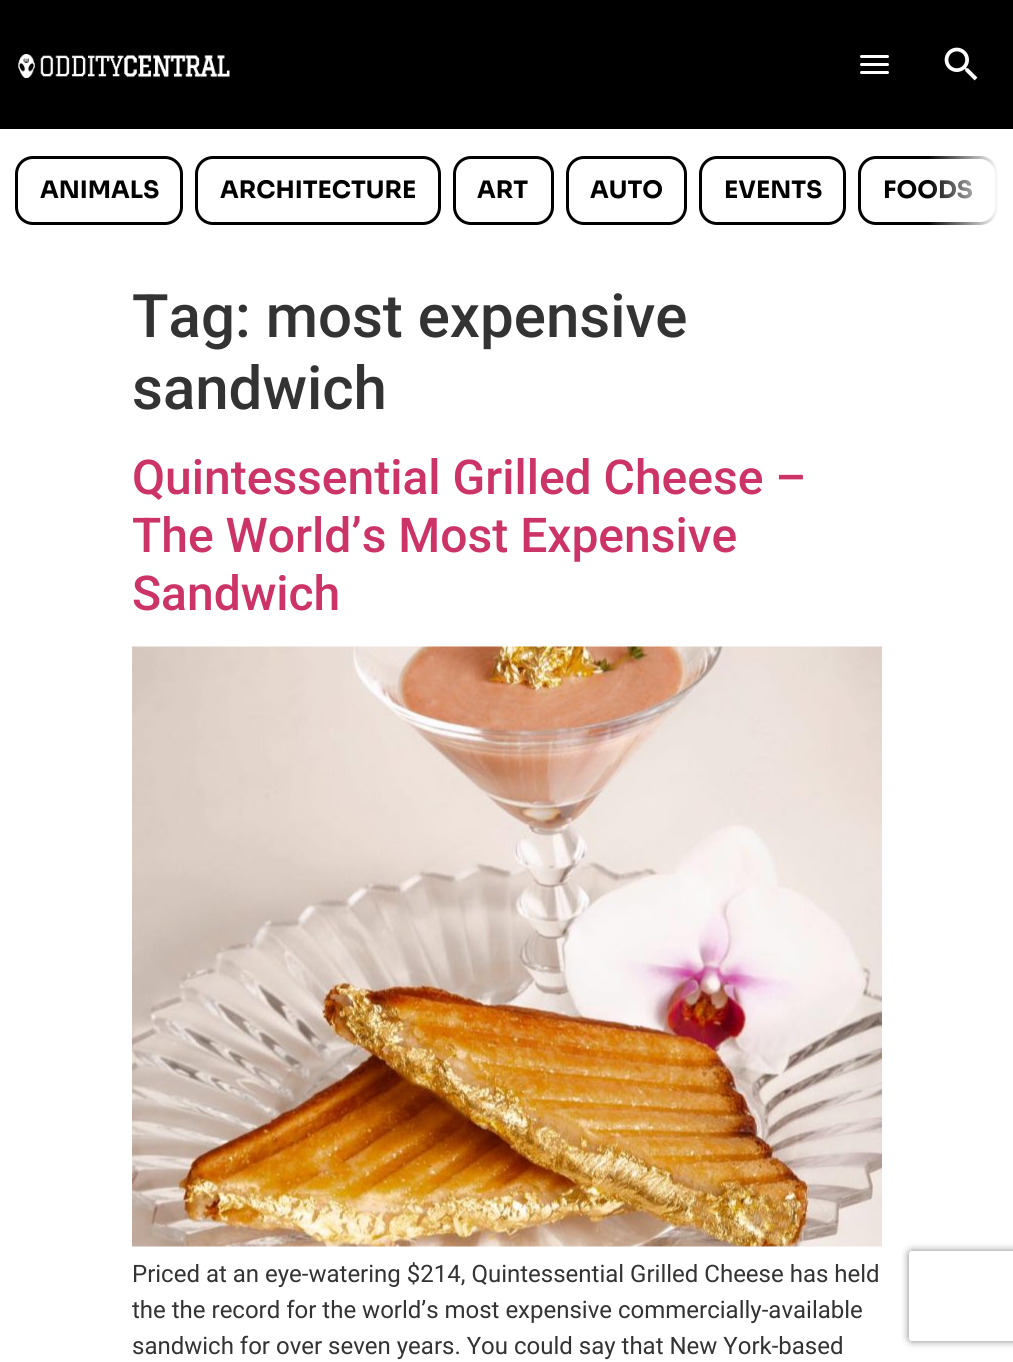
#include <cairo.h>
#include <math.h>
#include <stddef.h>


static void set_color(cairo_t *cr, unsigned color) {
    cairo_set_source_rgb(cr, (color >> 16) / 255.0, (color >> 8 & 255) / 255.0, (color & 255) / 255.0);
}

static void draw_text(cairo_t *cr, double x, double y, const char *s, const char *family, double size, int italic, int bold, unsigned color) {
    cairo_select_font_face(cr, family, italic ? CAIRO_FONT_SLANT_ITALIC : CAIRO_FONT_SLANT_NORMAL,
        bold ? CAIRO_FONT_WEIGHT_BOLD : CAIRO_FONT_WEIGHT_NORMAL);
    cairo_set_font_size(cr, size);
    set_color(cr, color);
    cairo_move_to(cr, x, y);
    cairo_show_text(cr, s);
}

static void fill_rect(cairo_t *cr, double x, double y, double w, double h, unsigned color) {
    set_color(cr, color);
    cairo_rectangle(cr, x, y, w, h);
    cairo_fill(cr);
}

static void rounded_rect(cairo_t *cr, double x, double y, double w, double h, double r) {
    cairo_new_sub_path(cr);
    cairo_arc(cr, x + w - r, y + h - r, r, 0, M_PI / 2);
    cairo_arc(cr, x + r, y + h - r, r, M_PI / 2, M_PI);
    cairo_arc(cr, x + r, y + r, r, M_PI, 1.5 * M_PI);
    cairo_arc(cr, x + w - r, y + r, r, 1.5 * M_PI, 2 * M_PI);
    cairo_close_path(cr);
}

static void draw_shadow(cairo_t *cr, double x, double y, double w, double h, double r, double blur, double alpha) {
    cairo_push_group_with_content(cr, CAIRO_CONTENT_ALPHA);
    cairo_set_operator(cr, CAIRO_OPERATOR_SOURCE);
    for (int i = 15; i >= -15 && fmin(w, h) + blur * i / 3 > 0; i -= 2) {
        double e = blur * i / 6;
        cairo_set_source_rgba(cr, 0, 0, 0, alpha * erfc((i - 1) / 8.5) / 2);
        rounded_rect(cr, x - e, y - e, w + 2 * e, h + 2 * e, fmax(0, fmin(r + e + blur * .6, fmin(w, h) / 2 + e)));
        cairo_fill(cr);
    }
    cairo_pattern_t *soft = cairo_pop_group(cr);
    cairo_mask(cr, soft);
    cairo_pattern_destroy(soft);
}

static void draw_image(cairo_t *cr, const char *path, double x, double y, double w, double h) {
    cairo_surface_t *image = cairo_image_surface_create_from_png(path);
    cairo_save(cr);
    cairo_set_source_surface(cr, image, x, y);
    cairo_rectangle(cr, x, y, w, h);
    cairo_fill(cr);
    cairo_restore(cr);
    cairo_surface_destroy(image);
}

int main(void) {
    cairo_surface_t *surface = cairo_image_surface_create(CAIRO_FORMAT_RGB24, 1013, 1362);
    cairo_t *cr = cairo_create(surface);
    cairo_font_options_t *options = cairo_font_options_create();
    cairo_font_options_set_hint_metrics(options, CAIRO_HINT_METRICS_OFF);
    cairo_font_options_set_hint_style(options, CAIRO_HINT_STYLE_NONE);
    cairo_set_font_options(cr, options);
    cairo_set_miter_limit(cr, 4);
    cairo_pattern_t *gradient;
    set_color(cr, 0xFFFFFF);
    cairo_paint(cr);
    fill_rect(cr, 0, 0, 1013, 129, 0x000000);
    draw_image(cr, "assets/img1.png", 18, 54, 212, 24);
    set_color(cr, 0xFFFFFF);
    rounded_rect(cr, 860, 55, 29, 3, 1.5);
    cairo_fill(cr);
    rounded_rect(cr, 860, 63, 29, 3, 1.5);
    cairo_fill(cr);
    rounded_rect(cr, 860, 71, 29, 3, 1.5);
    cairo_fill(cr);
    draw_image(cr, "assets/img2.png", 944, 47, 34, 34);
    rounded_rect(cr, 859.5, 157.5, 137, 66, 16.5);
    set_color(cr, 0x000000);
    cairo_set_line_width(cr, 3);
    cairo_stroke(cr);
    draw_text(cr, 883, 198, "FOODS", "Sora", 24, 0, 1, 0x000000);
    gradient = cairo_pattern_create_linear(999, 190, 927, 190);
    cairo_pattern_add_color_stop_rgba(gradient, 0, 1, 1, 1, 1);
    cairo_pattern_add_color_stop_rgba(gradient, 1, 1, 1, 1, 0);
    cairo_set_source(cr, gradient);
    cairo_pattern_destroy(gradient);
    cairo_rectangle(cr, 929, 156, 69, 69);
    cairo_fill(cr);
    rounded_rect(cr, 16.5, 157.5, 165, 66, 16.5);
    set_color(cr, 0x000000);
    cairo_stroke(cr);
    draw_text(cr, 40, 198, "ANIMALS", "Sora", 24, 0, 1, 0x000000);
    rounded_rect(cr, 196.5, 157.5, 243, 66, 16.5);
    cairo_stroke(cr);
    draw_text(cr, 220, 198, "ARCHITECTURE", "Sora", 24, 0, 1, 0x000000);
    rounded_rect(cr, 454.5, 157.5, 98, 66, 16.5);
    cairo_stroke(cr);
    draw_text(cr, 477, 198, "ART", "Sora", 24, 0, 1, 0x000000);
    rounded_rect(cr, 567.5, 157.5, 118, 66, 16.5);
    cairo_stroke(cr);
    draw_text(cr, 590, 198, "AUTO", "Sora", 24, 0, 1, 0x000000);
    rounded_rect(cr, 700.5, 157.5, 144, 66, 16.5);
    cairo_stroke(cr);
    draw_text(cr, 724, 198, "EVENTS", "Sora", 24, 0, 1, 0x000000);
    draw_text(cr, 132, 337, "Tag: most expensive", "Roboto Medium", 60, 0, 0, 0x333333);
    draw_text(cr, 132, 409, "sandwich", "Roboto Medium", 60, 0, 0, 0x333333);
    draw_text(cr, 132, 494, "Quintessential Grilled Cheese –", "Roboto Medium", 48, 0, 0, 0xCC3366);
    draw_text(cr, 132, 552, "The World’s Most Expensive", "Roboto Medium", 48, 0, 0, 0xCC3366);
    draw_text(cr, 132, 610, "Sandwich", "Roboto Medium", 48, 0, 0, 0xCC3366);
    draw_image(cr, "assets/img3.png", 132, 646, 750, 601);
    draw_text(cr, 132, 1282, "Priced at an eye-watering $214, Quintessential Grilled Cheese has held", "Roboto", 24, 0, 0, 0x333333);
    draw_text(cr, 132, 1318, "the the record for the world’s most expensive commercially-available", "Roboto", 24, 0, 0, 0x333333);
    draw_text(cr, 132, 1354, "sandwich for over seven years. You could say that New York-based", "Roboto", 24, 0, 0, 0x333333);
    cairo_save(cr);
    cairo_set_fill_rule(cr, CAIRO_FILL_RULE_EVEN_ODD);
    cairo_new_path(cr);
    cairo_move_to(cr, 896, 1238);
    cairo_line_to(cr, 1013, 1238);
    cairo_line_to(cr, 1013, 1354);
    cairo_line_to(cr, 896, 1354);
    cairo_close_path(cr);
    cairo_move_to(cr, 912, 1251);
    cairo_line_to(cr, 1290, 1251);
    cairo_curve_to(cr, 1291.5, 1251, 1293, 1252.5, 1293, 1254);
    cairo_line_to(cr, 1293, 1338);
    cairo_curve_to(cr, 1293, 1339.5, 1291.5, 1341, 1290, 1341);
    cairo_line_to(cr, 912, 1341);
    cairo_curve_to(cr, 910.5, 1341, 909, 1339.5, 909, 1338);
    cairo_line_to(cr, 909, 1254);
    cairo_curve_to(cr, 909, 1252.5, 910.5, 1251, 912, 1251);
    cairo_close_path(cr);
    cairo_clip(cr);
    set_color(cr, 0x808080);
    draw_shadow(cr, 909, 1251, 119, 90, 3, 4, 1);
    cairo_restore(cr);
    cairo_surface_write_to_png(surface, "output.png");
    cairo_font_options_destroy(options);
    cairo_destroy(cr);
    cairo_surface_destroy(surface);
    return 0;
}
